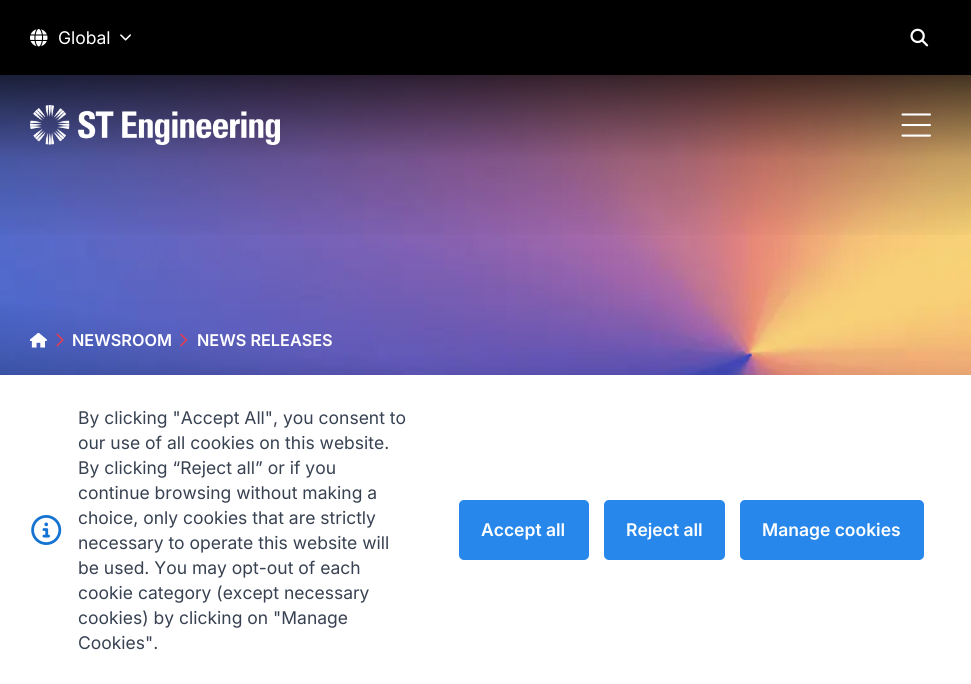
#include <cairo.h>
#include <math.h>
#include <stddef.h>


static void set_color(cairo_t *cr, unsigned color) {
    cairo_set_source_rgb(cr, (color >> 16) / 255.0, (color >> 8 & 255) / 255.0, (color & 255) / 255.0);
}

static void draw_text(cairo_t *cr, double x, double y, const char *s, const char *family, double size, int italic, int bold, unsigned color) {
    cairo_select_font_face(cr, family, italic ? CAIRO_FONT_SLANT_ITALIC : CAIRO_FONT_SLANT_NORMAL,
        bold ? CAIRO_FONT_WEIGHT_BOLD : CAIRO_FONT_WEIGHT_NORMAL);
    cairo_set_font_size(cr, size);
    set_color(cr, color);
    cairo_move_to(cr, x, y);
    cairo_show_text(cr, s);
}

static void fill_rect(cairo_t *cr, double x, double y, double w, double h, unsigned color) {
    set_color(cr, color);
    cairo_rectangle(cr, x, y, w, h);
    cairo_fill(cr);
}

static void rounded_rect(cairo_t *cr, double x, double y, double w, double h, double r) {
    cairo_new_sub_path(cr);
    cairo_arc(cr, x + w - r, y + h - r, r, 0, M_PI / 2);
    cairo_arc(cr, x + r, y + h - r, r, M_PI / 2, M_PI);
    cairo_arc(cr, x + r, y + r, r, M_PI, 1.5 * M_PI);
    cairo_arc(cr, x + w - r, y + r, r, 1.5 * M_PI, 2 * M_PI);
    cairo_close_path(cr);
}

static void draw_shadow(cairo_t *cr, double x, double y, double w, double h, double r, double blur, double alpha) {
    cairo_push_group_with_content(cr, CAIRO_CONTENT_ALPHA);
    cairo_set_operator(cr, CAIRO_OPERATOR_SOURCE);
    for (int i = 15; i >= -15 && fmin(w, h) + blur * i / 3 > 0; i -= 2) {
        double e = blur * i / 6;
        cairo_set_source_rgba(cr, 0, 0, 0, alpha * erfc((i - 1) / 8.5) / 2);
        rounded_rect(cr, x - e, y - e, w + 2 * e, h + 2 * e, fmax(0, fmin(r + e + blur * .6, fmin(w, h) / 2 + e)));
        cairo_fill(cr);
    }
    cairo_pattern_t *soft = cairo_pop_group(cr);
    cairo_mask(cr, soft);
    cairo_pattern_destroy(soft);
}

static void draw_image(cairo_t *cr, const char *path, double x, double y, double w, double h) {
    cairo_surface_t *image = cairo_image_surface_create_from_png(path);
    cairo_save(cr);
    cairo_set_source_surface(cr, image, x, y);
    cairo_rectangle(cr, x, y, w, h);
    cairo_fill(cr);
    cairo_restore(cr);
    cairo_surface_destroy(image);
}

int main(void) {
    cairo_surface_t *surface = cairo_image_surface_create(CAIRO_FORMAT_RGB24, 971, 684);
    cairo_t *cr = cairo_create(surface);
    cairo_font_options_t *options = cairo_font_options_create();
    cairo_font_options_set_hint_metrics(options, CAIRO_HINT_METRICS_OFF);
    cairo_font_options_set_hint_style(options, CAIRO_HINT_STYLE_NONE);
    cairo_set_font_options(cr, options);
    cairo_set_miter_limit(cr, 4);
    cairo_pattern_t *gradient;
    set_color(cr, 0xFFFFFF);
    cairo_paint(cr);
    fill_rect(cr, 0, 0, 971, 75, 0x000000);
    draw_image(cr, "assets/img1.png", 30, 29, 18, 18);
    draw_text(cr, 58, 44, "Global", "Inter", 17.5, 0, 0, 0xFFFFFF);
    draw_image(cr, "assets/img2.png", 120, 34, 11, 7);
    draw_image(cr, "assets/img3.png", 910, 28, 19, 19);
    draw_image(cr, "assets/img6.png", 0, 75, 971, 300);
    gradient = cairo_pattern_create_linear(486, 638, 486, 75);
    cairo_pattern_add_color_stop_rgba(gradient, 0.7, 0, 0, 0, 0);
    cairo_pattern_add_color_stop_rgba(gradient, 0.85, 0, 0, 0, 0.2);
    cairo_pattern_add_color_stop_rgba(gradient, 1, 0, 0, 0, 0.72);
    cairo_set_source(cr, gradient);
    cairo_pattern_destroy(gradient);
    cairo_rectangle(cr, 0, 75, 971, 160);
    cairo_fill(cr);
    draw_image(cr, "assets/img4.png", 30, 105, 250, 40);
    draw_image(cr, "assets/img5.png", 901, 113, 30, 24);
    gradient = cairo_pattern_create_linear(423, 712, 548, 0.4);
    cairo_pattern_add_color_stop_rgba(gradient, 0, 0, 0, 0, 0.7);
    cairo_pattern_add_color_stop_rgba(gradient, 0.47, 0, 0, 0, 0);
    cairo_pattern_add_color_stop_rgba(gradient, 1, 0, 0, 0, 0);
    cairo_set_source(cr, gradient);
    cairo_pattern_destroy(gradient);
    cairo_rectangle(cr, 0, 304, 404, 71);
    cairo_fill(cr);
    draw_image(cr, "assets/img7.png", 30, 333, 17, 15);
    draw_image(cr, "assets/img8.png", 56, 333, 8, 14);
    draw_text(cr, 72, 346, "NEWSROOM", "Inter SemiBold", 16.25, 0, 0, 0xFFFFFF);
    draw_image(cr, "assets/img9.png", 180, 333, 8, 14);
    draw_text(cr, 197, 346, "NEWS RELEASES", "Inter SemiBold", 16.25, 0, 0, 0xFFFFFF);
    set_color(cr, 0x000000);
    draw_shadow(cr, 0, 375, 971, 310, 0, 12.5, 0.1);
    fill_rect(cr, 0, 375, 971, 309, 0xFFFFFF);
    draw_image(cr, "assets/img10.png", 31, 515, 31, 30);
    draw_text(cr, 78, 424, "By clicking \"Accept All\", you consent to", "Inter", 17.5, 0, 0, 0x374151);
    draw_text(cr, 78, 449, "our use of all cookies on this website.", "Inter", 17.5, 0, 0, 0x374151);
    draw_text(cr, 78, 474, "By clicking “Reject all” or if you", "Inter", 17.5, 0, 0, 0x374151);
    draw_text(cr, 78, 499, "continue browsing without making a", "Inter", 17.5, 0, 0, 0x374151);
    draw_text(cr, 78, 524, "choice, only cookies that are strictly", "Inter", 17.5, 0, 0, 0x374151);
    draw_text(cr, 78, 549, "necessary to operate this website will", "Inter", 17.5, 0, 0, 0x374151);
    draw_text(cr, 78, 574, "be used. You may opt-out of each", "Inter", 17.5, 0, 0, 0x374151);
    draw_text(cr, 78, 599, "cookie category (except necessary", "Inter", 17.5, 0, 0, 0x374151);
    draw_text(cr, 78, 624, "cookies) by clicking on \"Manage", "Inter", 17.5, 0, 0, 0x374151);
    draw_text(cr, 78, 649, "Cookies\".", "Inter", 17.5, 0, 0, 0x374151);
    set_color(cr, 0x2787EA);
    rounded_rect(cr, 459, 500, 130, 60, 5);
    cairo_fill(cr);
    draw_text(cr, 481, 536, "Accept all", "Inter SemiBold", 17.5, 0, 0, 0xFFFFFF);
    set_color(cr, 0x2787EA);
    rounded_rect(cr, 604, 500, 121, 60, 5);
    cairo_fill(cr);
    draw_text(cr, 626, 536, "Reject all", "Inter SemiBold", 17.5, 0, 0, 0xFFFFFF);
    set_color(cr, 0x2787EA);
    rounded_rect(cr, 740, 500, 184, 60, 5);
    cairo_fill(cr);
    draw_text(cr, 762, 536, "Manage cookies", "Inter SemiBold", 17.5, 0, 0, 0xFFFFFF);
    cairo_surface_write_to_png(surface, "output.png");
    cairo_font_options_destroy(options);
    cairo_destroy(cr);
    cairo_surface_destroy(surface);
    return 0;
}
